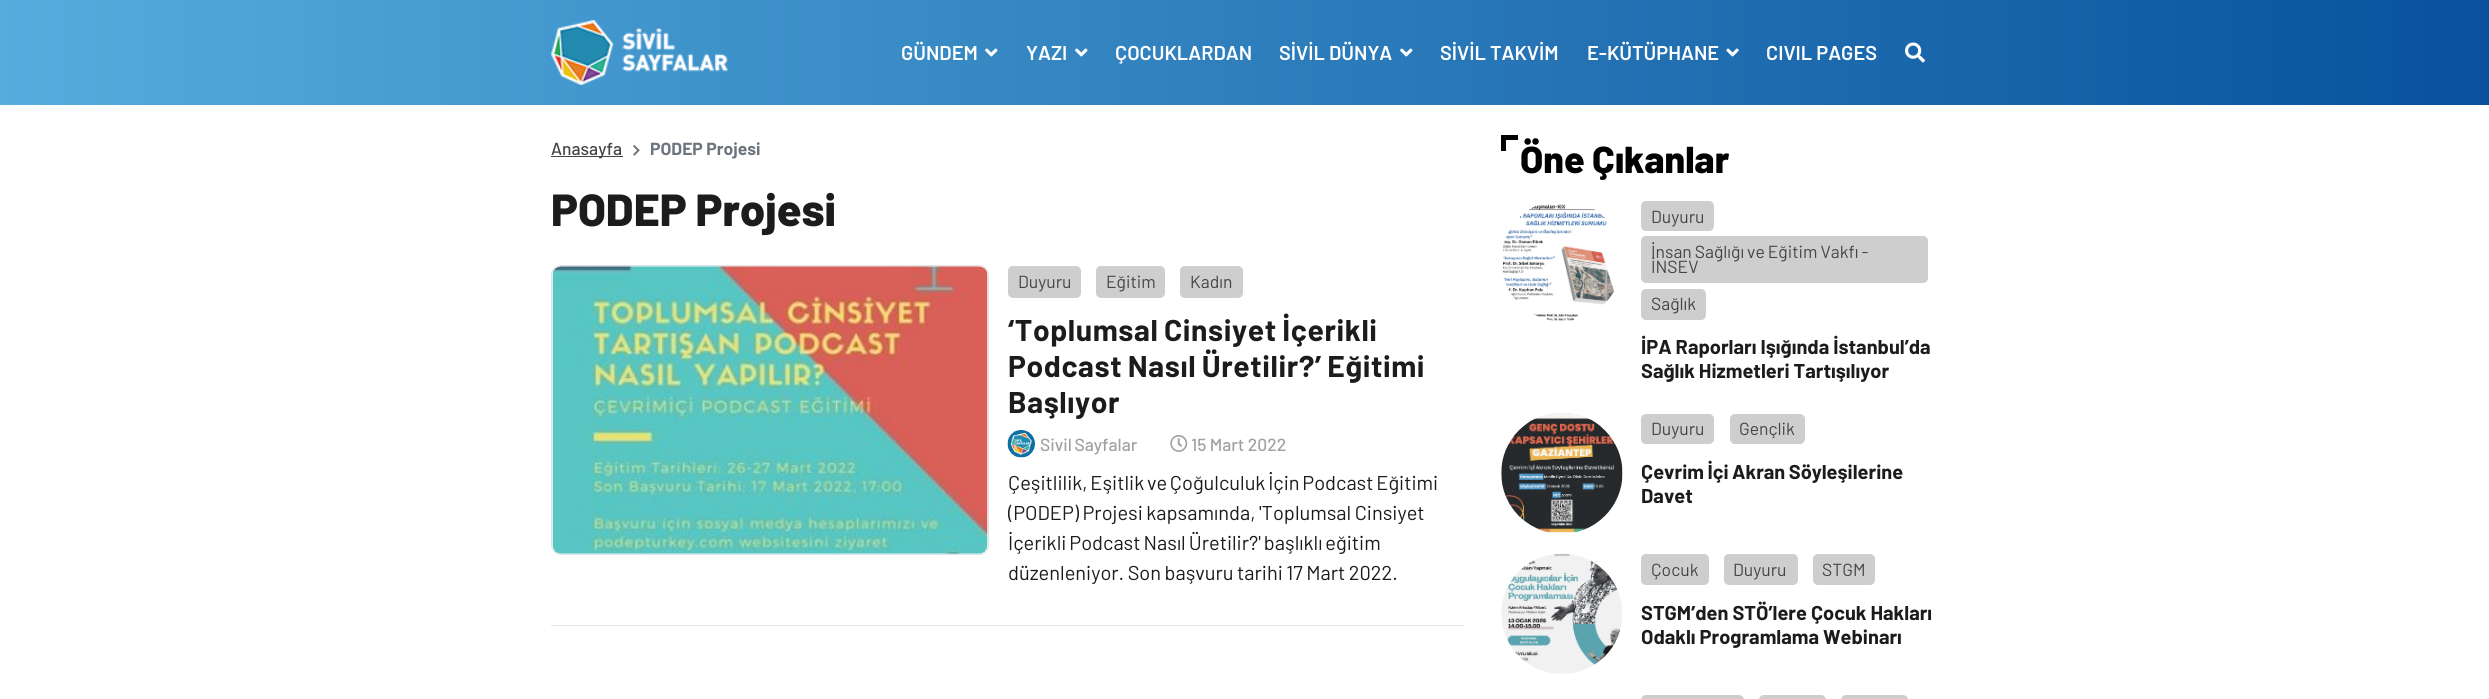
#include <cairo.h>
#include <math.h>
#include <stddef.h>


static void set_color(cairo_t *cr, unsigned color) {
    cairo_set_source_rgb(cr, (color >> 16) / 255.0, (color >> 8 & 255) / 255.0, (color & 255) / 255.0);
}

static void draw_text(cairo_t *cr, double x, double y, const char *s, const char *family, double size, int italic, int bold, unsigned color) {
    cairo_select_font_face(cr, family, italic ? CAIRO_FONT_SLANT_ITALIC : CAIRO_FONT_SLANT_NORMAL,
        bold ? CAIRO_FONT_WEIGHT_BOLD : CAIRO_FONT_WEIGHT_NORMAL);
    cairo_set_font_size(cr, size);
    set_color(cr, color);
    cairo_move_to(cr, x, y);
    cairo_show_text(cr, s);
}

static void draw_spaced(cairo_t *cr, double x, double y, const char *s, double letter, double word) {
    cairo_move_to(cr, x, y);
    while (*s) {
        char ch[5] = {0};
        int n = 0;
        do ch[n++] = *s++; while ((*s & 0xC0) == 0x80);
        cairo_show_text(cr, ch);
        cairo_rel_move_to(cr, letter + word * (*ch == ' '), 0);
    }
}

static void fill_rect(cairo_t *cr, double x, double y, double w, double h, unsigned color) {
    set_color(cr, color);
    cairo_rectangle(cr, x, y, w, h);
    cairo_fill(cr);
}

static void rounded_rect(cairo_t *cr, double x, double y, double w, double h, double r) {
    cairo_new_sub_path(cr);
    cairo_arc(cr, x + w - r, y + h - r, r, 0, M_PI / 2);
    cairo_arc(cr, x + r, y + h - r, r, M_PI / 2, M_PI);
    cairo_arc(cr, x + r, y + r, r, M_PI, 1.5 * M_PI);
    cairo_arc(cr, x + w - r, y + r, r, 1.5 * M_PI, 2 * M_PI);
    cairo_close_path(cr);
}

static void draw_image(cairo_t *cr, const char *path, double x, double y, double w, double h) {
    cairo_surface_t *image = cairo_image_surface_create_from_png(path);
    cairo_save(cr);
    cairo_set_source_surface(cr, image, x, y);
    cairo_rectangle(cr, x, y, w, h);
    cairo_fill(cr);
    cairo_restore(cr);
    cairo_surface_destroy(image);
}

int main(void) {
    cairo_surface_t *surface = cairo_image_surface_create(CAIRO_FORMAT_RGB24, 2489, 699);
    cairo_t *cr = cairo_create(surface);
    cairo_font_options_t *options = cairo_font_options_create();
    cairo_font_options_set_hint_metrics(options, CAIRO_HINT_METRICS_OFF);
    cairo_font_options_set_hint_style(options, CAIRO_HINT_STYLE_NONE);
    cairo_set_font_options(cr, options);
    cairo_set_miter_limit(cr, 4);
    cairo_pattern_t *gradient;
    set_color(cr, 0xFFFFFF);
    cairo_paint(cr);
    gradient = cairo_pattern_create_linear(0, 53, 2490, 52);
    cairo_pattern_add_color_stop_rgba(gradient, 0, 0.329, 0.678, 0.867, 1);
    cairo_pattern_add_color_stop_rgba(gradient, 0.4, 0.212, 0.533, 0.765, 1);
    cairo_pattern_add_color_stop_rgba(gradient, 1, 0.035, 0.318, 0.616, 1);
    cairo_set_source(cr, gradient);
    cairo_pattern_destroy(gradient);
    cairo_rectangle(cr, 0, 0, 2489, 105);
    cairo_fill(cr);
    draw_image(cr, "assets/img1.png", 551, 20, 177, 65);
    draw_text(cr, 901, 60, "GÜNDEM", "Barlow SemiBold", 20, 0, 0, 0xFFFFFF);
    draw_image(cr, "assets/img2.png", 985, 48, 13, 9);
    draw_text(cr, 1026, 60, "YAZI", "Barlow SemiBold", 20, 0, 0, 0xFFFFFF);
    draw_image(cr, "assets/img3.png", 1075, 48, 13, 9);
    draw_text(cr, 1115, 60, "ÇOCUKLARDAN", "Barlow SemiBold", 20, 0, 0, 0xFFFFFF);
    draw_text(cr, 1279, 60, "SİVİL DÜNYA", "Barlow SemiBold", 20, 0, 0, 0xFFFFFF);
    draw_image(cr, "assets/img4.png", 1400, 48, 13, 9);
    draw_text(cr, 1440, 60, "SİVİL TAKVİM", "Barlow SemiBold", 20, 0, 0, 0xFFFFFF);
    draw_text(cr, 1587, 60, "E-KÜTÜPHANE", "Barlow SemiBold", 20, 0, 0, 0xFFFFFF);
    draw_image(cr, "assets/img5.png", 1726, 48, 13, 9);
    draw_text(cr, 1766, 60, "CIVIL PAGES", "Barlow SemiBold", 20, 0, 0, 0xFFFFFF);
    draw_image(cr, "assets/img6.png", 1905, 42, 20, 21);
    fill_rect(cr, 551, 156, 72, 1, 0x454545);
    draw_text(cr, 551, 155, "Anasayfa", "Barlow Medium", 17.5, 0, 0, 0x454545);
    draw_image(cr, "assets/img7.png", 633, 145, 7, 11);
    draw_text(cr, 650, 155, "PODEP Projesi", "Barlow", 17.5, 0, 1, 0x6C757D);
    draw_text(cr, 551, 226, "PODEP Projesi", "Barlow ExtraBold", 45, 0, 0, 0x1C1C1C);
    fill_rect(cr, 551, 625, 913, 1, 0xE6E6E6);
    rounded_rect(cr, 551.5, 265.5, 437, 289, 9.5);
    set_color(cr, 0xDEE2E6);
    cairo_set_line_width(cr, 1);
    cairo_stroke(cr);
    draw_image(cr, "assets/img8.png", 552, 266, 436, 288);
    set_color(cr, 0xCECECE);
    rounded_rect(cr, 1008, 266, 73, 32, 5);
    cairo_fill(cr);
    draw_text(cr, 1018, 288, "Duyuru", "Barlow", 17.5, 0, 0, 0x454545);
    set_color(cr, 0xCECECE);
    rounded_rect(cr, 1096, 266, 69, 32, 5);
    cairo_fill(cr);
    draw_text(cr, 1106, 288, "Eğitim", "Barlow", 17.5, 0, 0, 0x454545);
    set_color(cr, 0xCECECE);
    rounded_rect(cr, 1180, 266, 63, 32, 5);
    cairo_fill(cr);
    draw_text(cr, 1190, 288, "Kadın", "Barlow", 17.5, 0, 0, 0x454545);
    cairo_select_font_face(cr, "Barlow", CAIRO_FONT_SLANT_NORMAL, CAIRO_FONT_WEIGHT_BOLD);
    cairo_set_font_size(cr, 30);
    set_color(cr, 0x1C1C1C);
    draw_spaced(cr, 1008, 341, "‘Toplumsal Cinsiyet İçerikli", 0.6, -1);
    draw_spaced(cr, 1008, 377, "Podcast Nasıl Üretilir?’ Eğitimi", 0.6, -1);
    draw_spaced(cr, 1008, 413, "Başlıyor", 0.6, 0);
    draw_image(cr, "assets/img9.png", 1007, 430, 28, 28);
    cairo_select_font_face(cr, "Barlow Medium", CAIRO_FONT_SLANT_NORMAL, CAIRO_FONT_WEIGHT_NORMAL);
    cairo_set_font_size(cr, 17.5);
    set_color(cr, 0xA1A1A1);
    draw_spaced(cr, 1040, 451, "Sivil Sayfalar", 0, -1);
    draw_image(cr, "assets/img10.png", 1170, 435, 18, 17);
    draw_text(cr, 1191, 451, "15 Mart 2022", "Barlow Medium", 17.5, 0, 0, 0xA1A1A1);
    cairo_select_font_face(cr, "Barlow", CAIRO_FONT_SLANT_NORMAL, CAIRO_FONT_WEIGHT_NORMAL);
    cairo_set_font_size(cr, 20);
    set_color(cr, 0x1C1C1C);
    draw_spaced(cr, 1008, 490, "Çeşitlilik, Eşitlik ve Çoğulculuk İçin Podcast Eğitimi", 0, -1.25);
    cairo_save(cr);
    cairo_rectangle(cr, 1008, 468, 456, 120);
    cairo_clip(cr);
    draw_spaced(cr, 1008, 520, "(PODEP) Projesi kapsamında, 'Toplumsal Cinsiyet", 0, -0.5);
    cairo_restore(cr);
    draw_spaced(cr, 1008, 550, "İçerikli Podcast Nasıl Üretilir?' başlıklı eğitim", 0, -1);
    draw_spaced(cr, 1008, 580, "düzenleniyor. Son başvuru tarihi 17 Mart 2022.", 0, -0.5);
    fill_rect(cr, 1501, 135, 5, 16, 0x000000);
    fill_rect(cr, 1501, 135, 17, 5, 0x000000);
    draw_text(cr, 1520, 173, "Öne Çıkanlar", "Barlow ExtraBold", 37.5, 0, 0, 0x010101);
    draw_image(cr, "assets/img11.png", 1502, 204, 113, 117);
    set_color(cr, 0xCECECE);
    rounded_rect(cr, 1641, 201, 73, 30, 5);
    cairo_fill(cr);
    draw_text(cr, 1651, 223, "Duyuru", "Barlow", 17.5, 0, 0, 0x454545);
    set_color(cr, 0xCECECE);
    rounded_rect(cr, 1641, 236, 287, 47, 5);
    cairo_fill(cr);
    set_color(cr, 0x454545);
    draw_spaced(cr, 1651, 258, "İnsan Sağlığı ve Eğitim Vakfı -", 0, -0.5);
    draw_text(cr, 1651, 273, "İNSEV", "Barlow", 17.5, 0, 0, 0x454545);
    set_color(cr, 0xCECECE);
    rounded_rect(cr, 1641, 289, 65, 31, 5);
    cairo_fill(cr);
    draw_text(cr, 1651, 310, "Sağlık", "Barlow", 17.5, 0, 0, 0x454545);
    draw_text(cr, 1641, 354, "İPA Raporları Işığında İstanbul’da", "Barlow", 20, 0, 1, 0x1C1C1C);
    draw_text(cr, 1641, 378, "Sağlık Hizmetleri Tartışılıyor", "Barlow", 20, 0, 1, 0x1C1C1C);
    draw_image(cr, "assets/img12.png", 1501, 413, 122, 121);
    set_color(cr, 0xCECECE);
    rounded_rect(cr, 1641, 414, 73, 30, 5);
    cairo_fill(cr);
    draw_text(cr, 1651, 435, "Duyuru", "Barlow", 17.5, 0, 0, 0x454545);
    set_color(cr, 0xCECECE);
    rounded_rect(cr, 1730, 414, 75, 30, 5);
    cairo_fill(cr);
    draw_text(cr, 1739, 435, "Gençlik", "Barlow", 17.5, 0, 0, 0x454545);
    cairo_select_font_face(cr, "Barlow", CAIRO_FONT_SLANT_NORMAL, CAIRO_FONT_WEIGHT_BOLD);
    cairo_set_font_size(cr, 20);
    set_color(cr, 0x1C1C1C);
    draw_spaced(cr, 1641, 479, "Çevrim İçi Akran Söyleşilerine", 0, -0.5);
    draw_text(cr, 1641, 503, "Davet", "Barlow", 20, 0, 1, 0x1C1C1C);
    draw_image(cr, "assets/img13.png", 1501, 553, 121, 121);
    set_color(cr, 0xCECECE);
    rounded_rect(cr, 1641, 554, 68, 31, 5);
    cairo_fill(cr);
    draw_text(cr, 1651, 576, "Çocuk", "Barlow", 17.5, 0, 0, 0x454545);
    set_color(cr, 0xCECECE);
    rounded_rect(cr, 1724, 554, 74, 31, 5);
    cairo_fill(cr);
    draw_text(cr, 1733, 576, "Duyuru", "Barlow", 17.5, 0, 0, 0x454545);
    set_color(cr, 0xCECECE);
    rounded_rect(cr, 1813, 554, 62, 31, 5);
    cairo_fill(cr);
    draw_text(cr, 1822, 576, "STGM", "Barlow", 17.5, 0, 0, 0x454545);
    draw_text(cr, 1641, 620, "STGM’den STÖ’lere Çocuk Hakları", "Barlow", 20, 0, 1, 0x1C1C1C);
    draw_text(cr, 1641, 644, "Odaklı Programlama Webinarı", "Barlow", 20, 0, 1, 0x1C1C1C);
    set_color(cr, 0xCECECE);
    rounded_rect(cr, 1641, 695, 103, 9, 5);
    cairo_fill(cr);
    rounded_rect(cr, 1759, 695, 67, 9, 5);
    cairo_fill(cr);
    rounded_rect(cr, 1841, 695, 67, 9, 5);
    cairo_fill(cr);
    cairo_surface_write_to_png(surface, "output.png");
    cairo_font_options_destroy(options);
    cairo_destroy(cr);
    cairo_surface_destroy(surface);
    return 0;
}
